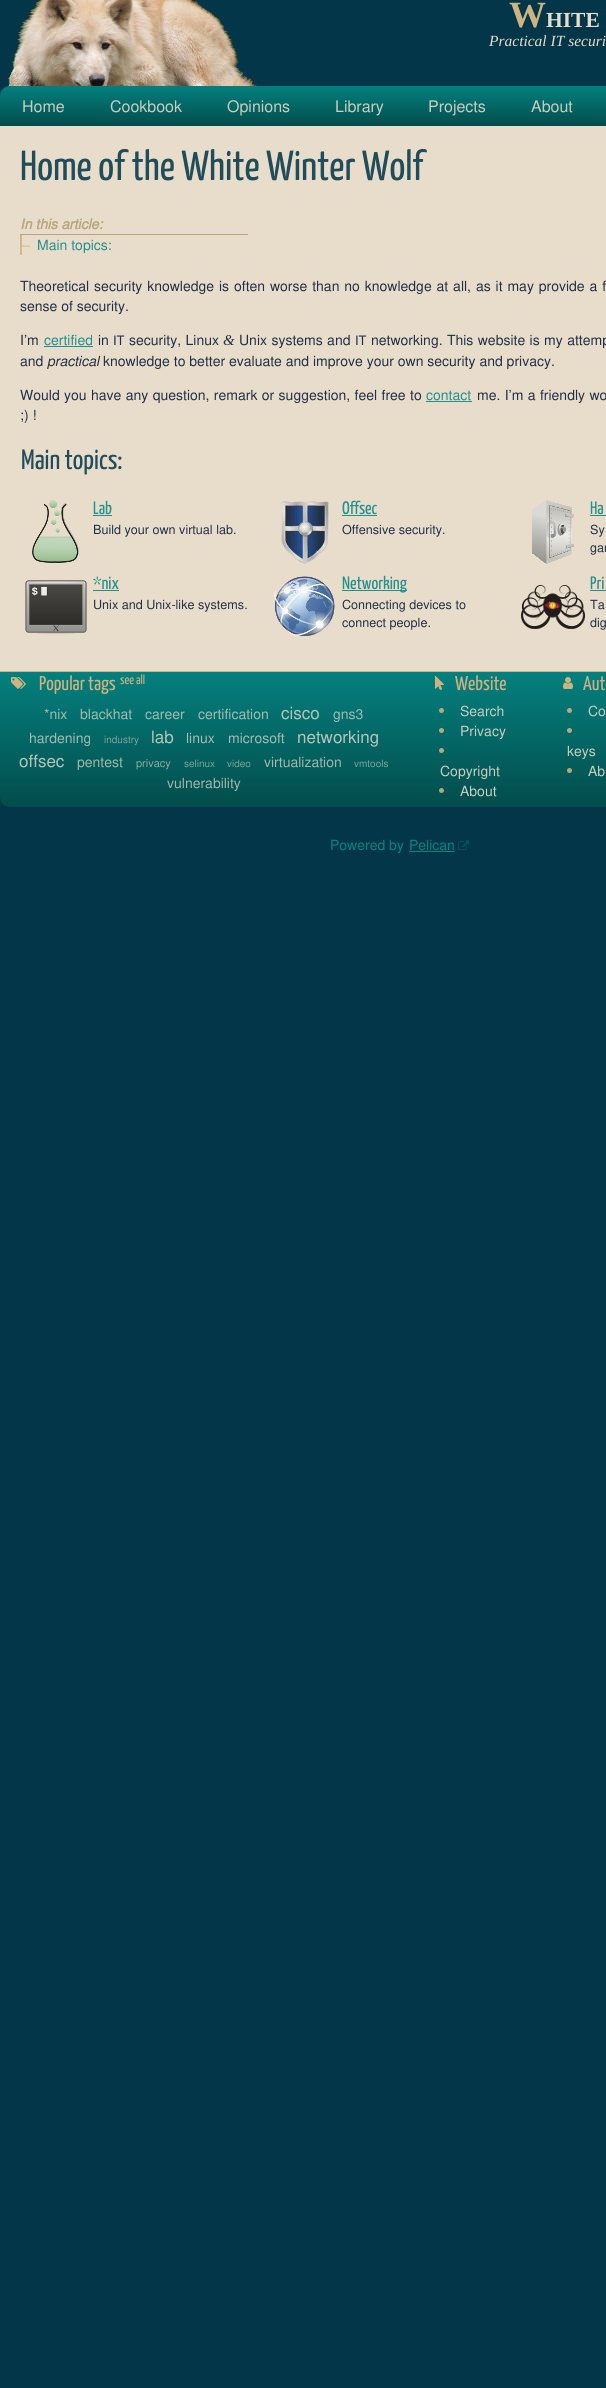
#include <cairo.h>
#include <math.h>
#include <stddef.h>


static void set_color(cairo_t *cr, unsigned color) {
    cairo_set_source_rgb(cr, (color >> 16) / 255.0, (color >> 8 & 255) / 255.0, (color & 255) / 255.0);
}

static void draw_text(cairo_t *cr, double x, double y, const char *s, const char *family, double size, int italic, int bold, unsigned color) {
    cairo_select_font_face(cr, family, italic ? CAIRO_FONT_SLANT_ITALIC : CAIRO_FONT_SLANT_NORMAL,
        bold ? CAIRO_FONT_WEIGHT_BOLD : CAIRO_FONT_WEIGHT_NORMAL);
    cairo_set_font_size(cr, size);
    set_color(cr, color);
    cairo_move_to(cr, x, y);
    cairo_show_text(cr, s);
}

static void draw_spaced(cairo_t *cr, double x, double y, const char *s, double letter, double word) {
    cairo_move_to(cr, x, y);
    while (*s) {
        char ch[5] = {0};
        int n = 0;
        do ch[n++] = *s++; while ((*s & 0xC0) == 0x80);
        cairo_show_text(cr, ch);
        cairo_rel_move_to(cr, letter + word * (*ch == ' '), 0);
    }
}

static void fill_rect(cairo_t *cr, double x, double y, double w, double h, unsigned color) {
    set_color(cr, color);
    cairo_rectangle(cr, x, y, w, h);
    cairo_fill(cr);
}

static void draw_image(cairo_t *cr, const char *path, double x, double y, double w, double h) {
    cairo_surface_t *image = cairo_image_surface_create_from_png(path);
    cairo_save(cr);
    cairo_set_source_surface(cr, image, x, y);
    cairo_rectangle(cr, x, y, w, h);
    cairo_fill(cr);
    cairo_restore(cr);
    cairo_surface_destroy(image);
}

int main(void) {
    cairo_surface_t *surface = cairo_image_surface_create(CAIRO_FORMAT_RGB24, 606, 2388);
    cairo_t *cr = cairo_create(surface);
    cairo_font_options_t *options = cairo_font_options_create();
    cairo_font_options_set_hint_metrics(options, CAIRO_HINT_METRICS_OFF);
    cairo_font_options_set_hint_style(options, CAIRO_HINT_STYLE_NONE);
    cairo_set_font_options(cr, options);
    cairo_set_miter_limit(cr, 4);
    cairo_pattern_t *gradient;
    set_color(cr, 0x033649);
    cairo_paint(cr);
    draw_image(cr, "assets/img1.png", 8, 0, 252, 87);
    draw_text(cr, 509, 27, "W", "Liberation Serif", 37, 0, 1, 0xCDB380);
    draw_text(cr, 546, 27, "HITE", "Liberation Serif", 21.5, 0, 1, 0xE8DDCB);
    draw_text(cr, 489, 46, "Practical IT securi", "Liberation Serif", 15.5, 1, 0, 0xE8DDCB);
    gradient = cairo_pattern_create_linear(400, 86, 400, 126);
    cairo_pattern_add_color_stop_rgba(gradient, 0, 0.016, 0.502, 0.494, 1);
    cairo_pattern_add_color_stop_rgba(gradient, 1, 0.008, 0.302, 0.298, 1);
    cairo_set_source(cr, gradient);
    cairo_pattern_destroy(gradient);
    cairo_new_path(cr);
    cairo_move_to(cr, 10, 86);
    cairo_line_to(cr, 606, 86);
    cairo_curve_to(cr, 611.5, 86, 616, 90.5, 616, 96);
    cairo_line_to(cr, 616, 126);
    cairo_line_to(cr, 0, 126);
    cairo_line_to(cr, 0, 96);
    cairo_curve_to(cr, 0, 90.5, 4.5, 86, 10, 86);
    cairo_close_path(cr);
    cairo_fill(cr);
    draw_text(cr, 22, 112, "Home", "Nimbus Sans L", 16, 0, 0, 0xCACDBE);
    draw_text(cr, 110, 112, "Cookbook", "Nimbus Sans L", 16, 0, 0, 0xCACDBE);
    draw_text(cr, 227, 112, "Opinions", "Nimbus Sans L", 16, 0, 0, 0xCACDBE);
    draw_text(cr, 335, 112, "Library", "Nimbus Sans L", 16, 0, 0, 0xCACDBE);
    draw_text(cr, 428, 112, "Projects", "Nimbus Sans L", 16, 0, 0, 0xCACDBE);
    draw_text(cr, 531, 112, "About", "Nimbus Sans L", 16, 0, 0, 0xCACDBE);
    fill_rect(cr, 0, 126, 606, 545, 0xE8DDCB);
    draw_text(cr, 20, 180, "Home of the White Winter Wolf", "Yanone Kaffeesatz", 42, 0, 0, 0x214C5A);
    fill_rect(cr, 20, 234, 228, 1, 0xBAA47B);
    draw_text(cr, 20, 229, "In this article:", "Nimbus Sans L", 14, 1, 1, 0xBAA47B);
    fill_rect(cr, 20, 235, 2, 20, 0xD1B88A);
    draw_text(cr, 22, 250, "–", "Nimbus Sans L", 14, 0, 0, 0xD1B88A);
    draw_text(cr, 37, 250, "Main topics:", "Nimbus Sans L", 14, 0, 0, 0x22908C);
    set_color(cr, 0x213048);
    draw_spaced(cr, 20, 291, "Theoretical security knowledge is often worse than no knowledge at all, as it may provide a f", 0, 1);
    draw_text(cr, 20, 311, "sense of security.", "Nimbus Sans L", 14, 0, 0, 0x213048);
    draw_text(cr, 20, 345, "I’m", "Nimbus Sans L", 14, 0, 0, 0x213048);
    draw_text(cr, 44, 345, "certified", "Nimbus Sans L", 14, 0, 0, 0x22908C);
    fill_rect(cr, 44, 346, 49, 1, 0x22908C);
    draw_text(cr, 98, 345, "in", "Nimbus Sans L", 14, 0, 0, 0x213048);
    draw_text(cr, 113, 345, "IT", "Nimbus Sans L", 13, 0, 0, 0x213048);
    cairo_set_font_size(cr, 14);
    draw_spaced(cr, 129, 345, "security, Linux", 0, 0.5);
    draw_text(cr, 223, 345, "&", "Liberation Serif", 15, 1, 0, 0x213048);
    cairo_select_font_face(cr, "Nimbus Sans L", CAIRO_FONT_SLANT_NORMAL, CAIRO_FONT_WEIGHT_NORMAL);
    cairo_set_font_size(cr, 14);
    draw_spaced(cr, 239, 345, "Unix systems and", 0, 0.5);
    draw_text(cr, 355, 345, "IT", "Nimbus Sans L", 13, 0, 0, 0x213048);
    cairo_set_font_size(cr, 14);
    draw_spaced(cr, 371, 345, "networking. This website is my attemp", 0, 0.5);
    draw_text(cr, 20, 366, "and", "Nimbus Sans L", 14, 0, 0, 0x213048);
    draw_text(cr, 47, 366, "practical", "Nimbus Sans L", 14, 1, 0, 0x213048);
    draw_text(cr, 103, 366, "knowledge to better evaluate and improve your own security and privacy.", "Nimbus Sans L", 14, 0, 0, 0x213048);
    draw_spaced(cr, 20, 400, "Would you have any question, remark or suggestion, feel free to", 0, 0.5);
    draw_text(cr, 426, 400, "contact", "Nimbus Sans L", 14, 0, 0, 0x22908C);
    fill_rect(cr, 426, 401, 46, 1, 0x22908C);
    set_color(cr, 0x213048);
    draw_spaced(cr, 477, 400, "me. I’m a friendly wo", 0, 0.5);
    draw_text(cr, 20, 420, ";) !", "Nimbus Sans L", 14, 0, 0, 0x213048);
    draw_text(cr, 21, 469, "Main topics:", "Yanone Kaffeesatz", 28, 0, 0, 0x214C5A);
    draw_image(cr, "assets/img2.png", 32, 500, 47, 63);
    draw_text(cr, 93, 514, "Lab", "Yanone Kaffeesatz", 18, 0, 0, 0x22908C);
    fill_rect(cr, 93, 515, 19, 1, 0x22908C);
    draw_text(cr, 93, 534, "Build your own virtual lab.", "Nimbus Sans L", 12.6, 0, 0, 0x213048);
    draw_image(cr, "assets/img3.png", 281, 501, 48, 63);
    draw_text(cr, 342, 514, "Offsec", "Yanone Kaffeesatz", 18, 0, 0, 0x22908C);
    fill_rect(cr, 342, 515, 35, 1, 0x22908C);
    draw_text(cr, 342, 534, "Offensive security.", "Nimbus Sans L", 12.6, 0, 0, 0x213048);
    draw_image(cr, "assets/img4.png", 532, 500, 42, 64);
    draw_text(cr, 590, 514, "Ha", "Yanone Kaffeesatz", 18, 0, 0, 0x22908C);
    fill_rect(cr, 590, 515, 16, 1, 0x22908C);
    draw_text(cr, 590, 534, "Sy", "Nimbus Sans L", 12.6, 0, 0, 0x213048);
    draw_text(cr, 590, 552, "gar", "Nimbus Sans L", 12.6, 0, 0, 0x213048);
    draw_image(cr, "assets/img5.png", 25, 580, 62, 54);
    draw_text(cr, 93, 589, "*nix", "Yanone Kaffeesatz", 18, 0, 0, 0x22908C);
    fill_rect(cr, 93, 590, 26, 1, 0x22908C);
    draw_text(cr, 93, 609, "Unix and Unix-like systems.", "Nimbus Sans L", 12.6, 0, 0, 0x213048);
    draw_image(cr, "assets/img6.png", 274, 576, 61, 60);
    fill_rect(cr, 342, 590, 65, 1, 0x22908C);
    draw_text(cr, 342, 589, "Networking", "Yanone Kaffeesatz", 18, 0, 0, 0x22908C);
    draw_text(cr, 342, 609, "Connecting devices to", "Nimbus Sans L", 12.6, 0, 0, 0x213048);
    draw_text(cr, 342, 627, "connect people.", "Nimbus Sans L", 12.6, 0, 0, 0x213048);
    draw_text(cr, 590, 589, "Pri", "Yanone Kaffeesatz", 18, 0, 0, 0x22908C);
    fill_rect(cr, 590, 590, 16, 1, 0x22908C);
    draw_image(cr, "assets/img7.png", 521, 585, 64, 44);
    draw_text(cr, 590, 609, "Ta", "Nimbus Sans L", 12.6, 0, 0, 0x213048);
    draw_text(cr, 590, 627, "dig", "Nimbus Sans L", 12.6, 0, 0, 0x213048);
    gradient = cairo_pattern_create_linear(400, 672, 400, 807);
    cairo_pattern_add_color_stop_rgba(gradient, 0, 0.016, 0.502, 0.494, 1);
    cairo_pattern_add_color_stop_rgba(gradient, 1, 0.008, 0.302, 0.298, 1);
    cairo_set_source(cr, gradient);
    cairo_pattern_destroy(gradient);
    cairo_new_path(cr);
    cairo_move_to(cr, 0, 672);
    cairo_line_to(cr, 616, 672);
    cairo_line_to(cr, 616, 797);
    cairo_curve_to(cr, 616, 802.5, 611.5, 807, 606, 807);
    cairo_line_to(cr, 10, 807);
    cairo_curve_to(cr, 4.5, 807, 0, 802.5, 0, 797);
    cairo_close_path(cr);
    cairo_fill(cr);
    fill_rect(cr, 0, 671, 606, 1, 0xCDB380);
    draw_image(cr, "assets/img8.png", 11, 677, 15, 12);
    draw_text(cr, 39, 690, "Popular tags", "Yanone Kaffeesatz", 20, 0, 0, 0xCDB380);
    draw_text(cr, 120, 684, "see all", "Yanone Kaffeesatz", 13, 0, 0, 0xCDB380);
    draw_text(cr, 44, 719, "*nix", "Nimbus Sans L", 14, 0, 0, 0xA2BCAF);
    draw_text(cr, 80, 719, "blackhat", "Nimbus Sans L", 14, 0, 0, 0xA2BCAF);
    draw_text(cr, 145, 719, "career", "Nimbus Sans L", 14, 0, 0, 0xA2BCAF);
    draw_text(cr, 198, 719, "certification", "Nimbus Sans L", 14, 0, 0, 0xA2BCAF);
    draw_text(cr, 281, 719, "cisco", "Nimbus Sans L", 17, 0, 0, 0xB6C5B7);
    draw_text(cr, 333, 719, "gns3", "Nimbus Sans L", 14, 0, 0, 0xA2BCAF);
    draw_text(cr, 29, 743, "hardening", "Nimbus Sans L", 14, 0, 0, 0xA2BCAF);
    draw_text(cr, 104, 743, "industry", "Nimbus Sans L", 10, 0, 0, 0x7BA49A);
    draw_text(cr, 151, 743, "lab", "Nimbus Sans L", 17, 0, 0, 0xB6C5B7);
    draw_text(cr, 186, 743, "linux", "Nimbus Sans L", 14, 0, 0, 0xA2BCAF);
    draw_text(cr, 228, 743, "microsoft", "Nimbus Sans L", 14, 0, 0, 0xA2BCAF);
    draw_text(cr, 297, 743, "networking", "Nimbus Sans L", 17, 0, 0, 0xB6C5B7);
    draw_text(cr, 19, 767, "offsec", "Nimbus Sans L", 17, 0, 0, 0xB6C5B7);
    draw_text(cr, 77, 767, "pentest", "Nimbus Sans L", 14, 0, 0, 0xA2B6A9);
    draw_text(cr, 136, 767, "privacy", "Nimbus Sans L", 11, 0, 0, 0x8EABA0);
    draw_text(cr, 184, 767, "selinux", "Nimbus Sans L", 10, 0, 0, 0x7BA49A);
    draw_text(cr, 227, 767, "video", "Nimbus Sans L", 10, 0, 0, 0x7BA49A);
    draw_text(cr, 264, 767, "virtualization", "Nimbus Sans L", 14, 0, 0, 0xA2B6A9);
    draw_text(cr, 354, 767, "vmtools", "Nimbus Sans L", 10, 0, 0, 0x7BA49A);
    draw_text(cr, 167, 788, "vulnerability", "Nimbus Sans L", 14, 0, 0, 0xA2B6A9);
    draw_image(cr, "assets/img9.png", 435, 676, 9, 14);
    draw_text(cr, 455, 690, "Website", "Yanone Kaffeesatz", 20, 0, 0, 0xCDB380);
    set_color(cr, 0xB3AA7E);
    cairo_new_path(cr);
    cairo_arc(cr, 441.5, 710.5, 2.5, 0, 2 * M_PI);
    cairo_fill(cr);
    draw_text(cr, 460, 716, "Search", "Nimbus Sans L", 14, 0, 0, 0xCACDBE);
    set_color(cr, 0xB3AA7D);
    cairo_new_path(cr);
    cairo_arc(cr, 441.5, 730.5, 2.5, 0, 2 * M_PI);
    cairo_fill(cr);
    draw_text(cr, 460, 736, "Privacy", "Nimbus Sans L", 14, 0, 0, 0xCACDBE);
    set_color(cr, 0xB3A97C);
    cairo_new_path(cr);
    cairo_arc(cr, 441.5, 750.5, 2.5, 0, 2 * M_PI);
    cairo_fill(cr);
    draw_text(cr, 440, 776, "Copyright", "Nimbus Sans L", 14, 0, 0, 0xCACDBE);
    set_color(cr, 0xB3A77A);
    cairo_new_path(cr);
    cairo_arc(cr, 441.5, 790.5, 2.5, 0, 2 * M_PI);
    cairo_fill(cr);
    draw_text(cr, 460, 796, "About", "Nimbus Sans L", 14, 0, 0, 0xCACDBE);
    draw_image(cr, "assets/img10.png", 563, 677, 10, 12);
    draw_text(cr, 583, 690, "Aut", "Yanone Kaffeesatz", 20, 0, 0, 0xCDB380);
    set_color(cr, 0xB3AA7E);
    cairo_new_path(cr);
    cairo_arc(cr, 569.5, 710.5, 2.5, 0, 2 * M_PI);
    cairo_fill(cr);
    draw_text(cr, 588, 716, "Co", "Nimbus Sans L", 14, 0, 0, 0xCACDBE);
    set_color(cr, 0xB3AA7D);
    cairo_new_path(cr);
    cairo_arc(cr, 569.5, 730.5, 2.5, 0, 2 * M_PI);
    cairo_fill(cr);
    draw_text(cr, 567, 756, "keys", "Nimbus Sans L", 14, 0, 0, 0xCACDBE);
    set_color(cr, 0xB3A87B);
    cairo_new_path(cr);
    cairo_arc(cr, 569.5, 770.5, 2.5, 0, 2 * M_PI);
    cairo_fill(cr);
    draw_text(cr, 588, 776, "Ab", "Nimbus Sans L", 14, 0, 0, 0xCACDBE);
    draw_text(cr, 330, 850, "Powered by", "Nimbus Sans L", 14, 0, 0, 0x048583);
    draw_text(cr, 409, 850, "Pelican", "Nimbus Sans L", 14, 0, 0, 0x048583);
    fill_rect(cr, 409, 851, 46, 1, 0x048583);
    draw_image(cr, "assets/img11.png", 458, 840, 12, 10);
    cairo_surface_write_to_png(surface, "output.png");
    cairo_font_options_destroy(options);
    cairo_destroy(cr);
    cairo_surface_destroy(surface);
    return 0;
}
